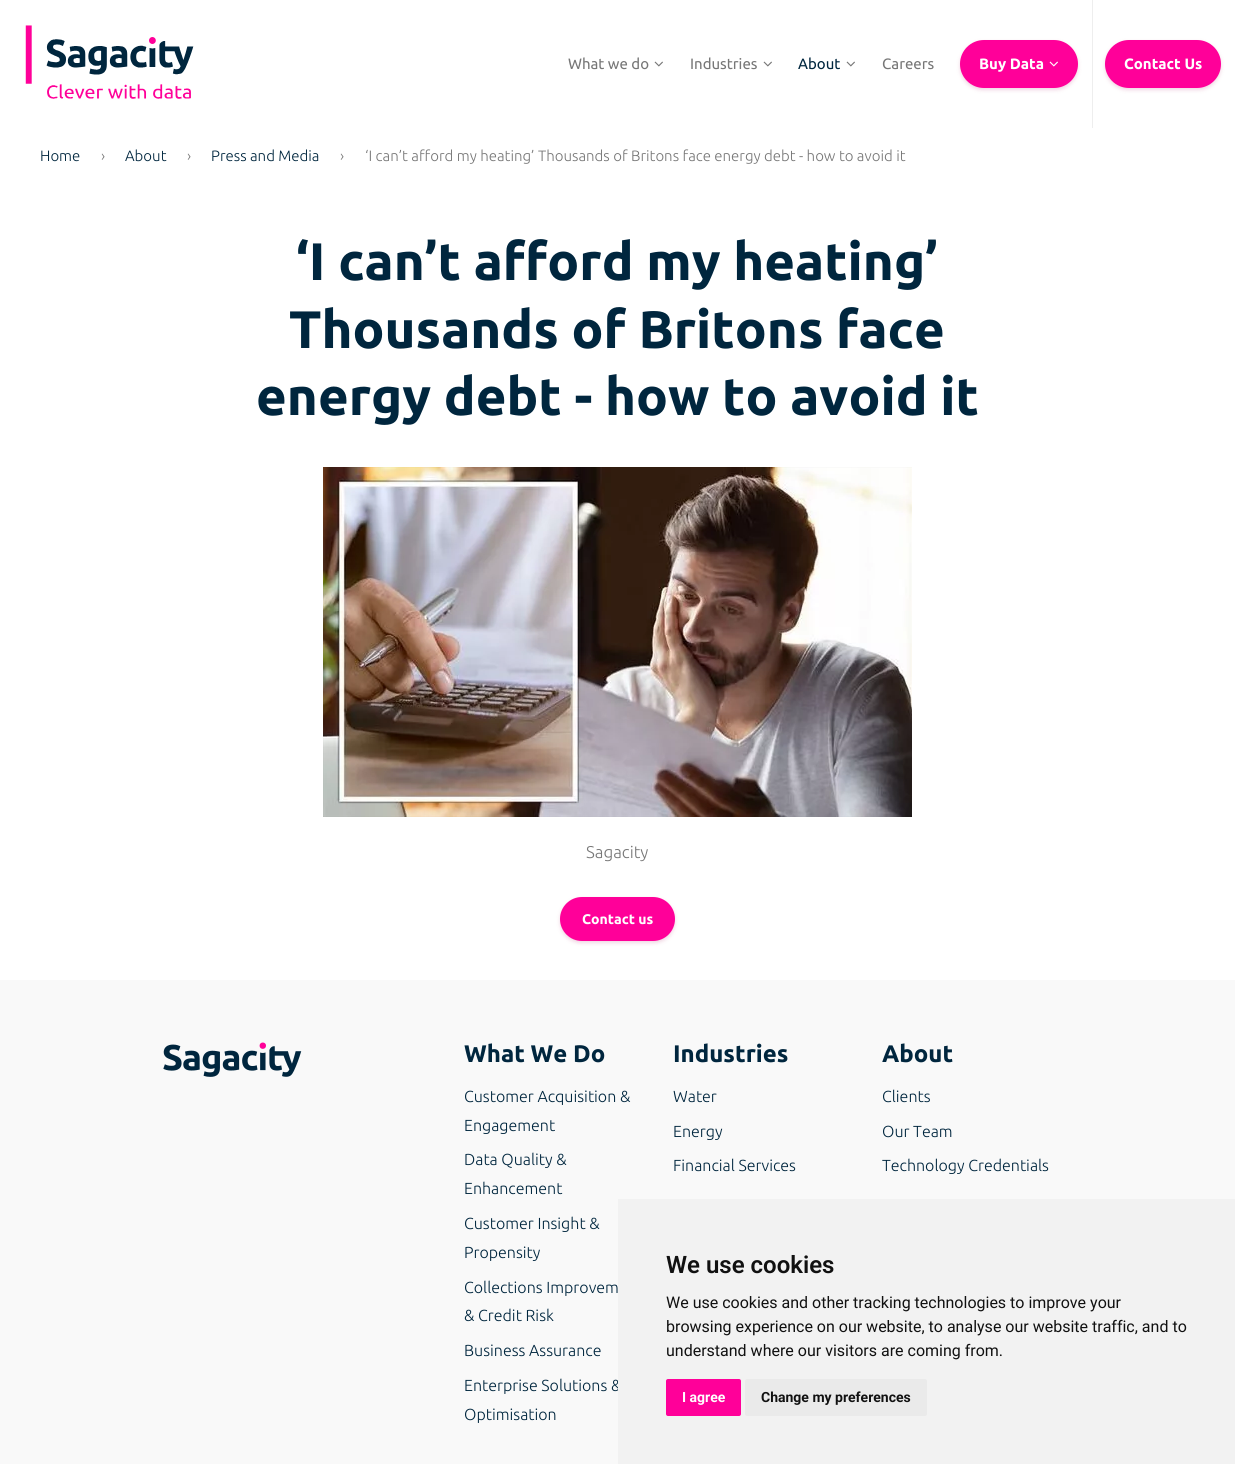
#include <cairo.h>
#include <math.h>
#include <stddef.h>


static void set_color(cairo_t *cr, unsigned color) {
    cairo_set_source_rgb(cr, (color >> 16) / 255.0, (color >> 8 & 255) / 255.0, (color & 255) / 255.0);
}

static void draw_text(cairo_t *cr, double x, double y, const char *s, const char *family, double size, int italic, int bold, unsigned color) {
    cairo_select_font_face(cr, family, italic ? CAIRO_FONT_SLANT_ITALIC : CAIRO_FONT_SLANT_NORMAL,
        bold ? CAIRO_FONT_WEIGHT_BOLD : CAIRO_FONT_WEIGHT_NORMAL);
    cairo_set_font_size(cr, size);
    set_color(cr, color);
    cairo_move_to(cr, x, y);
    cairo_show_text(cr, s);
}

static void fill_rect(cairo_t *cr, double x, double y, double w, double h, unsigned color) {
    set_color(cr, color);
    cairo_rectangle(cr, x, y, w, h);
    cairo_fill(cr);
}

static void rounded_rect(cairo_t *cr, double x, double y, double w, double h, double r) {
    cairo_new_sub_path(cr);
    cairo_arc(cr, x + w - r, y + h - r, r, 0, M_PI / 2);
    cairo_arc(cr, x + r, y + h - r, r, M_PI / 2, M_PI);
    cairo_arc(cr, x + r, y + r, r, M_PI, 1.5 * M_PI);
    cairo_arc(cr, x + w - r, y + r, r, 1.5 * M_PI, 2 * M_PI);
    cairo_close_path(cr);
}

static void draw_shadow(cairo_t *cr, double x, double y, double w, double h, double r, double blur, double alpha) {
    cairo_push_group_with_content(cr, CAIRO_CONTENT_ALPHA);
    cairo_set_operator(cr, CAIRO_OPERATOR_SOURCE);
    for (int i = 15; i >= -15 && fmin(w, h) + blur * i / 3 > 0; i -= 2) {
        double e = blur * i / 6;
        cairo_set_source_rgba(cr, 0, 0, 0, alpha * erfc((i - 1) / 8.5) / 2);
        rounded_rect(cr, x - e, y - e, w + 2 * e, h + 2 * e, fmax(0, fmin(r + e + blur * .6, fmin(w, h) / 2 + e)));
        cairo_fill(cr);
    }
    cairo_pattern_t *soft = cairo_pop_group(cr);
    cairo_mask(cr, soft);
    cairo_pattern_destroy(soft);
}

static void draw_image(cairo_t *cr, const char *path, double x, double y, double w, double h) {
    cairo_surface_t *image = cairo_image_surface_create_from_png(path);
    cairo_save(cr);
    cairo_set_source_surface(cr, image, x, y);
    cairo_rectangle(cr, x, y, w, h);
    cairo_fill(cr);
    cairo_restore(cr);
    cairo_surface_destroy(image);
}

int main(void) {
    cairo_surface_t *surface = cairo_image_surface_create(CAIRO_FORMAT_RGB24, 1235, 1464);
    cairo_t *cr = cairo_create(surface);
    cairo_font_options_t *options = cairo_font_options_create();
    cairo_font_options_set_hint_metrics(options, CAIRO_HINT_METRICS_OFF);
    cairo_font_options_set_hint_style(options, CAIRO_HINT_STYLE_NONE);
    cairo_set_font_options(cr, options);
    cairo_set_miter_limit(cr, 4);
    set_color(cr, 0xFFFFFF);
    cairo_paint(cr);
    draw_image(cr, "assets/img1.png", 25, 25, 169, 74);
    draw_text(cr, 568, 69, "What we do", "Ubuntu", 15, 0, 0, 0x777777);
    draw_image(cr, "assets/img2.png", 654, 61, 9, 6);
    draw_text(cr, 690, 69, "Industries", "Ubuntu", 15, 0, 0, 0x777777);
    draw_image(cr, "assets/img2.png", 763, 61, 9, 6);
    draw_text(cr, 798, 69, "About", "Ubuntu", 15, 0, 0, 0x00263E);
    draw_image(cr, "assets/img2.png", 846, 61, 9, 6);
    draw_text(cr, 882, 69, "Careers", "Ubuntu", 15, 0, 0, 0x777777);
    set_color(cr, 0xB52C6E);
    draw_shadow(cr, 960, 42, 118, 48, 24, 2, 0.2);
    set_color(cr, 0xFF0099);
    rounded_rect(cr, 960, 40, 118, 48, 24);
    cairo_fill(cr);
    draw_text(cr, 979, 69, "Buy Data", "Ubuntu", 15, 0, 1, 0xFFFFFF);
    draw_image(cr, "assets/img3.png", 1049, 61, 9, 6);
    fill_rect(cr, 1092, 0, 1, 128, 0xEEEEEE);
    set_color(cr, 0xB52C6E);
    draw_shadow(cr, 1105, 42, 116, 48, 24, 2, 0.2);
    set_color(cr, 0xFF0099);
    rounded_rect(cr, 1105, 40, 116, 48, 24);
    cairo_fill(cr);
    draw_text(cr, 1124, 69, "Contact Us", "Ubuntu", 15, 0, 1, 0xFFFFFF);
    draw_text(cr, 40, 161, "Home", "Ubuntu Light", 15, 0, 0, 0x00263E);
    draw_text(cr, 101, 161, "›", "Ubuntu Light", 15, 0, 0, 0x777777);
    draw_text(cr, 125, 161, "About", "Ubuntu Light", 15, 0, 0, 0x00263E);
    draw_text(cr, 187, 161, "›", "Ubuntu Light", 15, 0, 0, 0x777777);
    draw_text(cr, 211, 161, "Press and Media", "Ubuntu Light", 15, 0, 0, 0x00263E);
    draw_text(cr, 340, 161, "›", "Ubuntu Light", 15, 0, 0, 0x777777);
    draw_text(cr, 365, 161, "‘I can’t afford my heating’ Thousands of Britons face energy debt - how to avoid it", "Ubuntu Light", 15, 0, 0, 0x777777);
    draw_text(cr, 296, 280, "‘I can’t afford my heating’", "Ubuntu", 52.75, 0, 1, 0x00263E);
    draw_text(cr, 289, 348, "Thousands of Britons face", "Ubuntu", 52.75, 0, 1, 0x00263E);
    draw_text(cr, 256, 415, "energy debt - how to avoid it", "Ubuntu", 52.75, 0, 1, 0x00263E);
    draw_image(cr, "assets/img4.png", 323, 467, 589, 350);
    draw_text(cr, 586, 858, "Sagacity", "Ubuntu Light", 17, 0, 0, 0x777777);
    set_color(cr, 0xB52C6E);
    draw_shadow(cr, 560, 899, 115, 44, 22, 2, 0.2);
    set_color(cr, 0xFF0099);
    rounded_rect(cr, 560, 897, 115, 44, 22);
    cairo_fill(cr);
    draw_text(cr, 582, 924, "Contact us", "Ubuntu", 14, 0, 1, 0xFFFFFF);
    fill_rect(cr, 0, 980, 1235, 484, 0xF9F9F9);
    draw_image(cr, "assets/img5.png", 163, 1042, 139, 35);
    draw_text(cr, 464, 1062, "What We Do", "Ubuntu", 24, 0, 1, 0x00263E);
    draw_text(cr, 464, 1102, "Customer Acquisition &", "Ubuntu Light", 16, 0, 0, 0x00263E);
    draw_text(cr, 464, 1131, "Engagement", "Ubuntu Light", 16, 0, 0, 0x00263E);
    draw_text(cr, 464, 1165, "Data Quality &", "Ubuntu Light", 16, 0, 0, 0x00263E);
    draw_text(cr, 464, 1194, "Enhancement", "Ubuntu Light", 16, 0, 0, 0x00263E);
    draw_text(cr, 464, 1229, "Customer Insight &", "Ubuntu Light", 16, 0, 0, 0x00263E);
    draw_text(cr, 464, 1258, "Propensity", "Ubuntu Light", 16, 0, 0, 0x00263E);
    draw_text(cr, 464, 1293, "Collections Improvem", "Ubuntu Light", 16, 0, 0, 0x00263E);
    draw_text(cr, 464, 1321, "& Credit Risk", "Ubuntu Light", 16, 0, 0, 0x00263E);
    draw_text(cr, 464, 1356, "Business Assurance", "Ubuntu Light", 16, 0, 0, 0x00263E);
    draw_text(cr, 464, 1391, "Enterprise Solutions &", "Ubuntu Light", 16, 0, 0, 0x00263E);
    draw_text(cr, 464, 1420, "Optimisation", "Ubuntu Light", 16, 0, 0, 0x00263E);
    draw_text(cr, 673, 1062, "Industries", "Ubuntu", 24, 0, 1, 0x00263E);
    draw_text(cr, 673, 1102, "Water", "Ubuntu Light", 16, 0, 0, 0x00263E);
    draw_text(cr, 673, 1137, "Energy", "Ubuntu Light", 16, 0, 0, 0x00263E);
    draw_text(cr, 673, 1171, "Financial Services", "Ubuntu Light", 16, 0, 0, 0x00263E);
    draw_text(cr, 882, 1062, "About", "Ubuntu", 24, 0, 1, 0x00263E);
    draw_text(cr, 882, 1102, "Clients", "Ubuntu Light", 16, 0, 0, 0x00263E);
    draw_text(cr, 882, 1137, "Our Team", "Ubuntu Light", 16, 0, 0, 0x00263E);
    draw_text(cr, 882, 1171, "Technology Credentials", "Ubuntu Light", 16, 0, 0, 0x00263E);
    fill_rect(cr, 618, 1199, 617, 265, 0xF2F2F2);
    draw_text(cr, 666, 1273, "We use cookies", "Roboto SemiBold", 24, 0, 0, 0x111111);
    draw_text(cr, 666, 1308, "We use cookies and other tracking technologies to improve your", "Roboto", 16, 0, 0, 0x111111);
    draw_text(cr, 666, 1332, "browsing experience on our website, to analyse our website traffic, and to", "Roboto", 16, 0, 0, 0x111111);
    draw_text(cr, 666, 1356, "understand where our visitors are coming from.", "Roboto", 16, 0, 0, 0x111111);
    set_color(cr, 0xFF0099);
    rounded_rect(cr, 666, 1379, 75, 37, 2);
    cairo_fill(cr);
    draw_text(cr, 682, 1402, "I agree", "Roboto", 14, 0, 1, 0xFFFFFF);
    set_color(cr, 0xEAEAEA);
    rounded_rect(cr, 745, 1379, 182, 37, 2);
    cairo_fill(cr);
    draw_text(cr, 761, 1402, "Change my preferences", "Roboto", 14, 0, 1, 0x111111);
    cairo_surface_write_to_png(surface, "output.png");
    cairo_font_options_destroy(options);
    cairo_destroy(cr);
    cairo_surface_destroy(surface);
    return 0;
}
